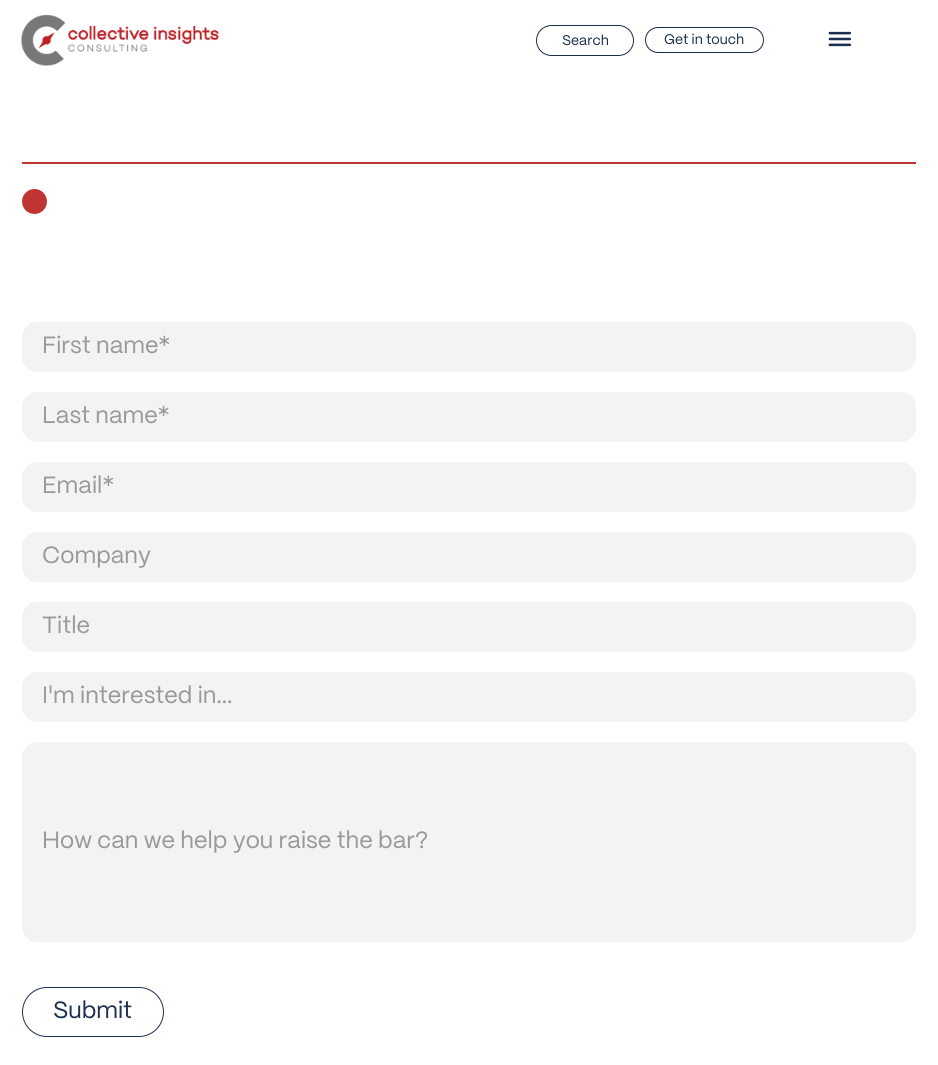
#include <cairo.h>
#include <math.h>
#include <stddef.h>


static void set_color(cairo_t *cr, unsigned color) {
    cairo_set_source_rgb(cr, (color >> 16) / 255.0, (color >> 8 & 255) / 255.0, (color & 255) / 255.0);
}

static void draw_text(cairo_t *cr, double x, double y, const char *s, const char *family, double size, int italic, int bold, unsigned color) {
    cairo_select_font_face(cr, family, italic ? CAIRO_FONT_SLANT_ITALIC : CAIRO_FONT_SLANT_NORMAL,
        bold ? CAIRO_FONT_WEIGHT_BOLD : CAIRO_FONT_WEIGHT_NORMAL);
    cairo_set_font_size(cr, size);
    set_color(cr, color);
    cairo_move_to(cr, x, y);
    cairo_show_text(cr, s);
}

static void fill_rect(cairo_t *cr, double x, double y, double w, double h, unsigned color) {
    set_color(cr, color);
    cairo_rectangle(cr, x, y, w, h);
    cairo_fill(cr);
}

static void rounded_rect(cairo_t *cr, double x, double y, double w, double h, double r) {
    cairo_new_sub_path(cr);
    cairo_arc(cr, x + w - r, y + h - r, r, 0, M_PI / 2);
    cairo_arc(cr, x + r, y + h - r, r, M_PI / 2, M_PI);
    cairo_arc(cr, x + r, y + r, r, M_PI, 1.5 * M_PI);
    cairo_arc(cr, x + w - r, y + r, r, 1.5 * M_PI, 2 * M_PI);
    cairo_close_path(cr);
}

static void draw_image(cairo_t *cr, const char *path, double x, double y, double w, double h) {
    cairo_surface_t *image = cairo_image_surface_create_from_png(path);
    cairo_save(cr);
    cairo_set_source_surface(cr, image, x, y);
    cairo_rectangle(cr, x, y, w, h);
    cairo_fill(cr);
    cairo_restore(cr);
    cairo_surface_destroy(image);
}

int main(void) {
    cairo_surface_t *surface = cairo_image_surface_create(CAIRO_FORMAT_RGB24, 938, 1065);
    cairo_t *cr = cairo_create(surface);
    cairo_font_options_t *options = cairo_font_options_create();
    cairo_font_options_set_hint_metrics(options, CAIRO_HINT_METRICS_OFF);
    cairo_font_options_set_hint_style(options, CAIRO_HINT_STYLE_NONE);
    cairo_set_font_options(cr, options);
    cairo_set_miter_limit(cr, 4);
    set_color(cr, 0xFFFFFF);
    cairo_paint(cr);
    draw_image(cr, "assets/img1.png", 20, 14, 199, 52);
    rounded_rect(cr, 536.5, 25.5, 97, 30, 15);
    set_color(cr, 0x1D2E4E);
    cairo_set_line_width(cr, 1);
    cairo_stroke(cr);
    draw_text(cr, 562, 45, "Search", "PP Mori", 14, 0, 0, 0x1D2E4E);
    rounded_rect(cr, 645.5, 27.5, 118, 25, 12.5);
    cairo_stroke(cr);
    draw_text(cr, 664, 44, "Get in touch", "PP Mori", 14, 0, 0, 0x1D2E4E);
    draw_image(cr, "assets/img2.png", 828, 31, 24, 16);
    fill_rect(cr, 22, 162, 894, 2, 0xC03534);
    cairo_arc(cr, 34.5, 201.5, 11.5, 0, 2 * M_PI);
    cairo_fill_preserve(cr);
    cairo_set_line_width(cr, 2);
    cairo_stroke(cr);
    set_color(cr, 0xF3F3F3);
    rounded_rect(cr, 22, 322, 894, 50, 15);
    cairo_fill(cr);
    draw_text(cr, 42, 353, "First name*", "PP Mori", 23.5, 0, 0, 0x999999);
    set_color(cr, 0xF3F3F3);
    rounded_rect(cr, 22, 392, 894, 50, 15);
    cairo_fill(cr);
    draw_text(cr, 42, 423, "Last name*", "PP Mori", 23.5, 0, 0, 0x999999);
    set_color(cr, 0xF3F3F3);
    rounded_rect(cr, 22, 462, 894, 50, 15);
    cairo_fill(cr);
    draw_text(cr, 42, 493, "Email*", "PP Mori", 23.5, 0, 0, 0x999999);
    set_color(cr, 0xF3F3F3);
    rounded_rect(cr, 22, 532, 894, 50, 15);
    cairo_fill(cr);
    draw_text(cr, 42, 563, "Company", "PP Mori", 23.5, 0, 0, 0x999999);
    set_color(cr, 0xF3F3F3);
    rounded_rect(cr, 22, 602, 894, 50, 15);
    cairo_fill(cr);
    draw_text(cr, 42, 633, "Title", "PP Mori", 23.5, 0, 0, 0x999999);
    set_color(cr, 0xF3F3F3);
    rounded_rect(cr, 22, 672, 894, 50, 15);
    cairo_fill(cr);
    draw_text(cr, 42, 703, "I'm interested in...", "PP Mori", 23.5, 0, 0, 0x999999);
    set_color(cr, 0xF3F3F3);
    rounded_rect(cr, 22, 742, 894, 200, 15);
    cairo_fill(cr);
    draw_text(cr, 42, 848, "How can we help you raise the bar?", "PP Mori", 23.5, 0, 0, 0x999999);
    rounded_rect(cr, 22.5, 987.5, 141, 49, 24.5);
    set_color(cr, 0x1D2E4E);
    cairo_set_line_width(cr, 1);
    cairo_stroke(cr);
    draw_text(cr, 53, 1018, "Submit", "PP Mori", 23.5, 0, 0, 0x1D2E4E);
    cairo_surface_write_to_png(surface, "output.png");
    cairo_font_options_destroy(options);
    cairo_destroy(cr);
    cairo_surface_destroy(surface);
    return 0;
}
